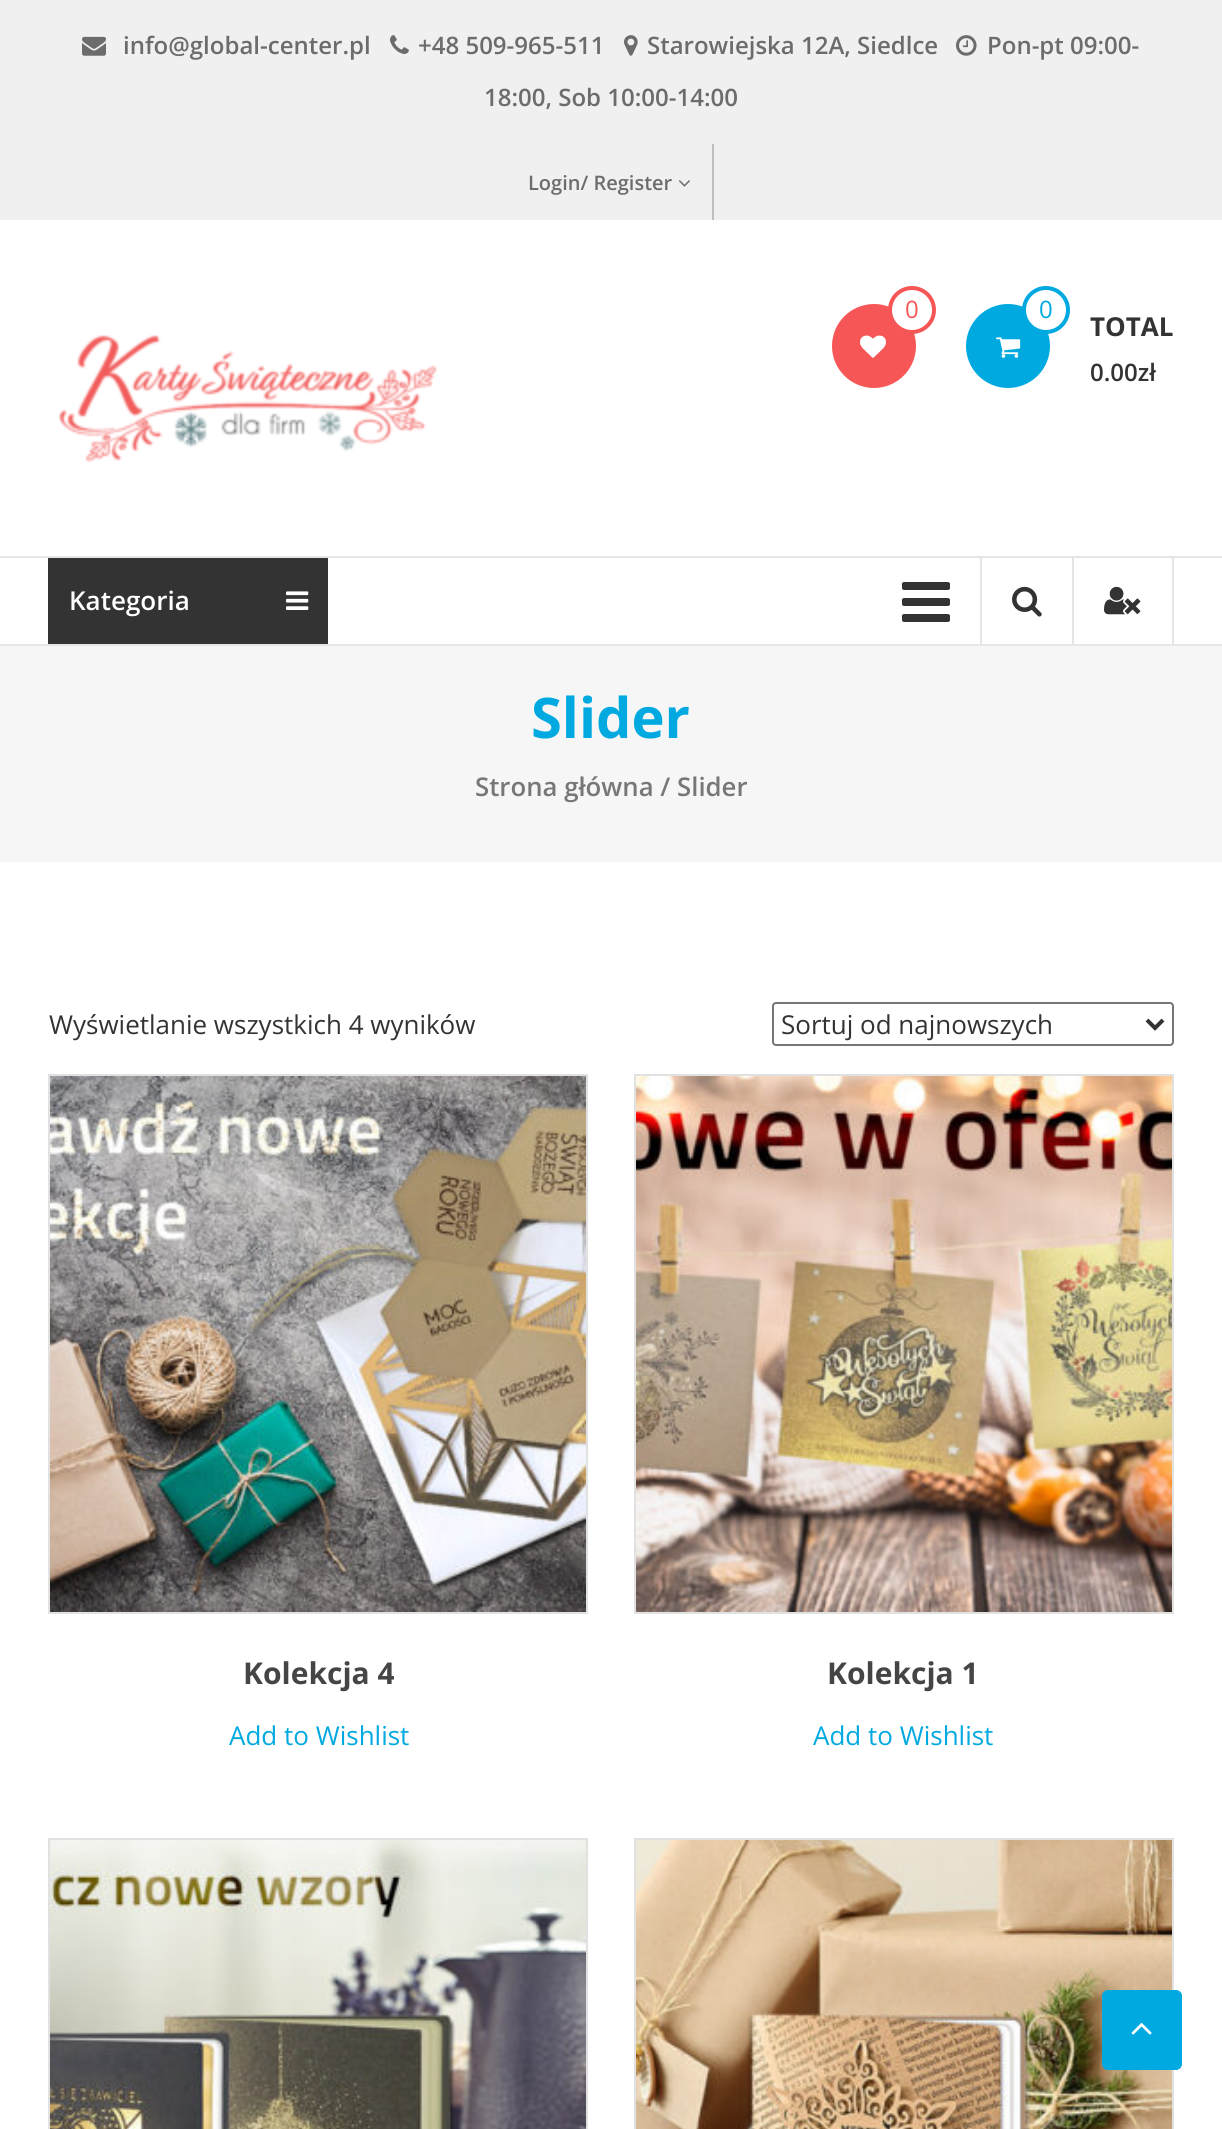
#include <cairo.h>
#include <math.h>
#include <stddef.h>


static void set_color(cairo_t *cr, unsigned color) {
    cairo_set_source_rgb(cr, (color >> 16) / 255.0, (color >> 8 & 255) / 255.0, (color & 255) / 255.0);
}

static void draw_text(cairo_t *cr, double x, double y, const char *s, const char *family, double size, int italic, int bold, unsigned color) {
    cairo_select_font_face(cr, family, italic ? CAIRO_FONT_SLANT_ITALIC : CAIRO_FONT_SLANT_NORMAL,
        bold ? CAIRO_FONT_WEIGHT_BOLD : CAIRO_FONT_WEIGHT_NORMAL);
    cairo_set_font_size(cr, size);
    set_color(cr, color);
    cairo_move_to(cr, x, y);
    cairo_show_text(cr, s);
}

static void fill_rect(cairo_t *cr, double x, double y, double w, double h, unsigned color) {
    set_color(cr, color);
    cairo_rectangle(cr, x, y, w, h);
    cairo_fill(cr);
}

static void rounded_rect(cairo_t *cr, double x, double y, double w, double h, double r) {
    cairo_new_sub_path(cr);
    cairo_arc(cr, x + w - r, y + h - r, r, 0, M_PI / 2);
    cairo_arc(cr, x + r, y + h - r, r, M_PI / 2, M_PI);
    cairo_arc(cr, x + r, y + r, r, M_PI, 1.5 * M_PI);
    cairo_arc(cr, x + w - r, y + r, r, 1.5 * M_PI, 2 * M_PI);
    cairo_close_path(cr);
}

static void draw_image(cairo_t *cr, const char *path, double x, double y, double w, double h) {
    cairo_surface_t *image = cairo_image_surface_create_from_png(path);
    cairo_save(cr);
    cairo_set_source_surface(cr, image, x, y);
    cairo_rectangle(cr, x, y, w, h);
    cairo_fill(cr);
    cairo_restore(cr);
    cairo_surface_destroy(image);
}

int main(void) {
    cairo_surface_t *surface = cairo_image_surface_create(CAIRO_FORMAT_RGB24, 1222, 2129);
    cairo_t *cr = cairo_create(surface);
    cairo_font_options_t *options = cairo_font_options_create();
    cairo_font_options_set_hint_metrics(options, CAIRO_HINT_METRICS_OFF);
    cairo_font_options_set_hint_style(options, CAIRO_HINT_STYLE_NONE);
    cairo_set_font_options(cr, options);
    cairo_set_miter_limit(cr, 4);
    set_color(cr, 0xFFFFFF);
    cairo_paint(cr);
    fill_rect(cr, 0, 0, 1222, 220, 0xF0F0F0);
    draw_image(cr, "assets/img1.png", 82, 36, 24, 20);
    draw_text(cr, 123, 54, "info@global-center.pl", "Open Sans SemiBold", 24, 0, 0, 0x6D6C6C);
    draw_image(cr, "assets/img2.png", 390, 35, 19, 19);
    draw_text(cr, 418, 54, "+48 509-965-511", "Open Sans SemiBold", 24, 0, 0, 0x6D6C6C);
    draw_image(cr, "assets/img3.png", 624, 35, 14, 21);
    draw_text(cr, 647, 54, "Starowiejska 12A, Siedlce", "Open Sans SemiBold", 24, 0, 0, 0x6D6C6C);
    draw_image(cr, "assets/img4.png", 956, 35, 21, 21);
    draw_text(cr, 987, 54, "Pon-pt 09:00-", "Open Sans SemiBold", 24, 0, 0, 0x6D6C6C);
    draw_text(cr, 484, 106, "18:00, Sob 10:00-14:00", "Open Sans SemiBold", 24, 0, 0, 0x6D6C6C);
    fill_rect(cr, 712, 144, 2, 76, 0xC0BFBF);
    draw_text(cr, 528, 190, "Login/ Register", "Open Sans SemiBold", 20, 0, 0, 0x6D6C6C);
    draw_image(cr, "assets/img5.png", 678, 180, 12, 7);
    draw_image(cr, "assets/img6.png", 58, 335, 379, 128);
    set_color(cr, 0xF65656);
    cairo_arc(cr, 874, 346, 42, 0, 2 * M_PI);
    cairo_fill(cr);
    set_color(cr, 0xFFFFFF);
    cairo_arc(cr, 912, 310, 22, 0, 2 * M_PI);
    cairo_fill_preserve(cr);
    set_color(cr, 0xF65656);
    cairo_set_line_width(cr, 4);
    cairo_stroke(cr);
    draw_text(cr, 905, 318, "0", "Open Sans", 24, 0, 0, 0xF65656);
    draw_image(cr, "assets/img7.png", 860, 335, 26, 23);
    set_color(cr, 0x00A9E0);
    cairo_arc(cr, 1008, 346, 42, 0, 2 * M_PI);
    cairo_fill(cr);
    set_color(cr, 0xFFFFFF);
    cairo_arc(cr, 1046, 310, 22, 0, 2 * M_PI);
    cairo_fill_preserve(cr);
    set_color(cr, 0x00A9E0);
    cairo_stroke(cr);
    draw_text(cr, 1039, 318, "0", "Open Sans", 24, 0, 0, 0x00A9E0);
    draw_image(cr, "assets/img8.png", 996, 337, 25, 21);
    draw_text(cr, 1090, 336, "TOTAL", "Open Sans", 26, 0, 1, 0x333333);
    draw_text(cr, 1090, 381, "0.00zł", "Open Sans SemiBold", 24, 0, 0, 0x333333);
    fill_rect(cr, 0, 556, 1222, 2, 0xE5E5E5);
    fill_rect(cr, 0, 644, 1222, 2, 0xE5E5E5);
    fill_rect(cr, 48, 558, 280, 86, 0x333333);
    draw_text(cr, 69, 610, "Kategoria", "Open Sans SemiBold", 26, 0, 0, 0xFFFFFF);
    draw_image(cr, "assets/img9.png", 286, 591, 23, 19);
    draw_image(cr, "assets/img10.png", 902, 582, 48, 40);
    fill_rect(cr, 980, 558, 2, 86, 0xE5E5E5);
    draw_image(cr, "assets/img11.png", 1012, 586, 30, 31);
    fill_rect(cr, 1172, 558, 2, 86, 0xE5E5E5);
    fill_rect(cr, 1072, 558, 2, 86, 0xE5E5E5);
    draw_image(cr, "assets/img12.png", 1104, 586, 37, 29);
    fill_rect(cr, 0, 646, 1222, 216, 0xF6F6F6);
    draw_text(cr, 531, 738, "Slider", "Open Sans", 56, 0, 1, 0x00A9E0);
    draw_text(cr, 475, 796, "Strona główna / Slider", "Open Sans SemiBold", 25.75, 0, 0, 0x777777);
    draw_text(cr, 49, 1034, "Wyświetlanie wszystkich 4 wyników", "Open Sans", 26, 0, 0, 0x333333);
    rounded_rect(cr, 773, 1003, 400, 42, 3);
    set_color(cr, 0x767676);
    cairo_set_line_width(cr, 2);
    cairo_stroke(cr);
    cairo_new_path(cr);
    cairo_move_to(cr, 1147, 1020);
    cairo_line_to(cr, 1155, 1028);
    cairo_line_to(cr, 1163, 1020);
    set_color(cr, 0x333333);
    cairo_set_line_width(cr, 4);
    cairo_stroke(cr);
    draw_text(cr, 781, 1034, "Sortuj od najnowszych", "Open Sans", 26, 0, 0, 0x333333);
    cairo_rectangle(cr, 49, 1075, 538, 538);
    set_color(cr, 0xE1E1E1);
    cairo_set_line_width(cr, 2);
    cairo_stroke(cr);
    draw_image(cr, "assets/img13.png", 50, 1076, 536, 536);
    draw_text(cr, 243, 1684, "Kolekcja 4", "Open Sans", 30, 0, 1, 0x454545);
    draw_text(cr, 229, 1745, "Add to Wishlist", "Open Sans", 26, 0, 0, 0x00A9E0);
    cairo_rectangle(cr, 635, 1075, 538, 538);
    set_color(cr, 0xE1E1E1);
    cairo_stroke(cr);
    draw_image(cr, "assets/img14.png", 636, 1076, 536, 536);
    draw_text(cr, 827, 1684, "Kolekcja 1", "Open Sans", 30, 0, 1, 0x454545);
    draw_text(cr, 813, 1745, "Add to Wishlist", "Open Sans", 26, 0, 0, 0x00A9E0);
    cairo_rectangle(cr, 49, 1839, 538, 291);
    set_color(cr, 0xE1E1E1);
    cairo_stroke(cr);
    draw_image(cr, "assets/img15.png", 50, 1840, 536, 289);
    cairo_rectangle(cr, 635, 1839, 538, 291);
    cairo_stroke(cr);
    draw_image(cr, "assets/img16.png", 636, 1840, 536, 289);
    set_color(cr, 0x00A9E0);
    rounded_rect(cr, 1102, 1990, 80, 80, 6);
    cairo_fill(cr);
    draw_image(cr, "assets/img17.png", 1131, 2023, 21, 12);
    cairo_surface_write_to_png(surface, "output.png");
    cairo_font_options_destroy(options);
    cairo_destroy(cr);
    cairo_surface_destroy(surface);
    return 0;
}
